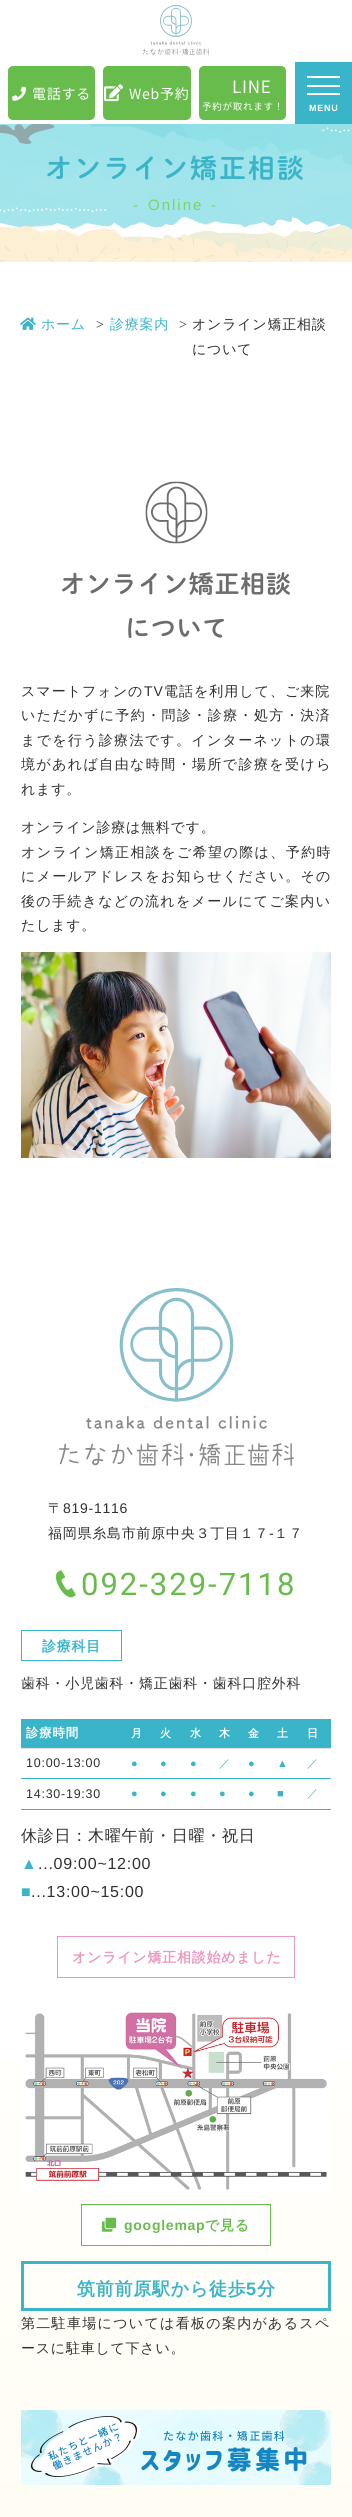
#include <cairo.h>
#include <math.h>
#include <stddef.h>


static void set_color(cairo_t *cr, unsigned color) {
    cairo_set_source_rgb(cr, (color >> 16) / 255.0, (color >> 8 & 255) / 255.0, (color & 255) / 255.0);
}

static void draw_spaced(cairo_t *cr, double x, double y, const char *s, double letter, double word) {
    cairo_move_to(cr, x, y);
    while (*s) {
        char ch[5] = {0};
        int n = 0;
        do ch[n++] = *s++; while ((*s & 0xC0) == 0x80);
        cairo_show_text(cr, ch);
        cairo_rel_move_to(cr, letter + word * (*ch == ' '), 0);
    }
}

static void fill_rect(cairo_t *cr, double x, double y, double w, double h, unsigned color) {
    set_color(cr, color);
    cairo_rectangle(cr, x, y, w, h);
    cairo_fill(cr);
}

static void rounded_rect(cairo_t *cr, double x, double y, double w, double h, double r) {
    cairo_new_sub_path(cr);
    cairo_arc(cr, x + w - r, y + h - r, r, 0, M_PI / 2);
    cairo_arc(cr, x + r, y + h - r, r, M_PI / 2, M_PI);
    cairo_arc(cr, x + r, y + r, r, M_PI, 1.5 * M_PI);
    cairo_arc(cr, x + w - r, y + r, r, 1.5 * M_PI, 2 * M_PI);
    cairo_close_path(cr);
}

static void draw_image(cairo_t *cr, const char *path, double x, double y, double w, double h) {
    cairo_surface_t *image = cairo_image_surface_create_from_png(path);
    cairo_save(cr);
    cairo_set_source_surface(cr, image, x, y);
    cairo_rectangle(cr, x, y, w, h);
    cairo_fill(cr);
    cairo_restore(cr);
    cairo_surface_destroy(image);
}

int main(void) {
    cairo_surface_t *surface = cairo_image_surface_create(CAIRO_FORMAT_RGB24, 352, 2517);
    cairo_t *cr = cairo_create(surface);
    cairo_font_options_t *options = cairo_font_options_create();
    cairo_font_options_set_hint_metrics(options, CAIRO_HINT_METRICS_OFF);
    cairo_font_options_set_hint_style(options, CAIRO_HINT_STYLE_NONE);
    cairo_set_font_options(cr, options);
    cairo_set_miter_limit(cr, 4);
    set_color(cr, 0xFFFFFF);
    cairo_paint(cr);
    draw_image(cr, "assets/img1.png", 143, 5, 66, 50);
    set_color(cr, 0x68BC4C);
    rounded_rect(cr, 8, 66, 87, 54, 5);
    cairo_fill(cr);
    draw_image(cr, "assets/img2.png", 12, 86, 15, 15);
    cairo_select_font_face(cr, "Noto Sans JP", CAIRO_FONT_SLANT_NORMAL, CAIRO_FONT_WEIGHT_NORMAL);
    cairo_set_font_size(cr, 14);
    set_color(cr, 0xFFFFFF);
    draw_spaced(cr, 32, 99, "電話する", 0.75, 0);
    set_color(cr, 0x68BC4C);
    rounded_rect(cr, 103, 66, 88, 54, 5);
    cairo_fill(cr);
    draw_image(cr, "assets/img3.png", 104, 84, 19, 18);
    set_color(cr, 0xFFFFFF);
    draw_spaced(cr, 129, 99, "Web予約", 0.75, 0);
    set_color(cr, 0x68BC4C);
    rounded_rect(cr, 199, 66, 87, 54, 5);
    cairo_fill(cr);
    cairo_set_font_size(cr, 17);
    set_color(cr, 0xFFFFFF);
    draw_spaced(cr, 232, 93, "LINE", 0.75, 0);
    cairo_set_font_size(cr, 9.5);
    draw_spaced(cr, 202, 110, "予約が取れます！", 0.75, 0);
    fill_rect(cr, 295, 62, 57, 62, 0x3AB4C9);
    fill_rect(cr, 307, 76, 33, 2, 0xFFFFFF);
    fill_rect(cr, 307, 85, 33, 2, 0xFFFFFF);
    fill_rect(cr, 307, 93, 33, 2, 0xFFFFFF);
    cairo_select_font_face(cr, "Liberation Sans", CAIRO_FONT_SLANT_NORMAL, CAIRO_FONT_WEIGHT_BOLD);
    cairo_set_font_size(cr, 9);
    draw_spaced(cr, 309, 111, "MENU", 0.75, 0);
    draw_image(cr, "assets/img4.png", 0, 124, 352, 138);
    cairo_select_font_face(cr, "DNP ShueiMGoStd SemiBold", CAIRO_FONT_SLANT_NORMAL, CAIRO_FONT_WEIGHT_NORMAL);
    cairo_set_font_size(cr, 27);
    set_color(cr, 0x3AB4C9);
    draw_spaced(cr, 45, 178, "オンライン矯正相談", 2, 0);
    cairo_select_font_face(cr, "Liberation Sans", CAIRO_FONT_SLANT_NORMAL, CAIRO_FONT_WEIGHT_NORMAL);
    cairo_set_font_size(cr, 15);
    set_color(cr, 0x79D759);
    draw_spaced(cr, 133, 210, "-", 2, 0);
    draw_spaced(cr, 148, 210, "Online", 2, 0);
    draw_spaced(cr, 211, 210, "-", 2, 0);
    draw_image(cr, "assets/img5.png", 20, 317, 16, 13);
    cairo_select_font_face(cr, "WenQuanYi Zen Hei Medium", CAIRO_FONT_SLANT_NORMAL, CAIRO_FONT_WEIGHT_NORMAL);
    cairo_set_font_size(cr, 14);
    set_color(cr, 0x3AB4C9);
    draw_spaced(cr, 41, 329, "ホーム", 0.75, 0);
    cairo_select_font_face(cr, "Liberation Serif", CAIRO_FONT_SLANT_NORMAL, CAIRO_FONT_WEIGHT_NORMAL);
    set_color(cr, 0x303030);
    draw_spaced(cr, 96, 329, ">", 0.75, 0);
    cairo_select_font_face(cr, "WenQuanYi Zen Hei Medium", CAIRO_FONT_SLANT_NORMAL, CAIRO_FONT_WEIGHT_NORMAL);
    set_color(cr, 0x3AB4C9);
    draw_spaced(cr, 110, 329, "診療案内", 0.75, 0);
    cairo_select_font_face(cr, "Liberation Serif", CAIRO_FONT_SLANT_NORMAL, CAIRO_FONT_WEIGHT_NORMAL);
    set_color(cr, 0x303030);
    draw_spaced(cr, 179, 329, ">", 0.75, 0);
    cairo_select_font_face(cr, "WenQuanYi Zen Hei Medium", CAIRO_FONT_SLANT_NORMAL, CAIRO_FONT_WEIGHT_NORMAL);
    draw_spaced(cr, 192, 329, "オンライン矯正相談", 0.75, 0);
    draw_spaced(cr, 192, 354, "について", 0.75, 0);
    draw_image(cr, "assets/img6.png", 145, 481, 63, 63);
    cairo_select_font_face(cr, "DNP ShueiMGoStd SemiBold", CAIRO_FONT_SLANT_NORMAL, CAIRO_FONT_WEIGHT_NORMAL);
    cairo_set_font_size(cr, 25);
    set_color(cr, 0x6C6C6C);
    draw_spaced(cr, 60, 593, "オンライン矯正相談", 0.75, 0);
    draw_spaced(cr, 125, 637, "について", 0.75, 0);
    cairo_select_font_face(cr, "WenQuanYi Zen Hei Medium", CAIRO_FONT_SLANT_NORMAL, CAIRO_FONT_WEIGHT_NORMAL);
    cairo_set_font_size(cr, 14);
    set_color(cr, 0x303030);
    draw_spaced(cr, 21, 696, "スマートフォンの", 1, 0);
    cairo_select_font_face(cr, "Liberation Sans", CAIRO_FONT_SLANT_NORMAL, CAIRO_FONT_WEIGHT_NORMAL);
    draw_spaced(cr, 144, 696, "TV", 1, 0);
    cairo_select_font_face(cr, "WenQuanYi Zen Hei Medium", CAIRO_FONT_SLANT_NORMAL, CAIRO_FONT_WEIGHT_NORMAL);
    draw_spaced(cr, 164, 696, "電話を利用して、ご来院", 1, 0);
    draw_spaced(cr, 21, 720, "いただかずに予約・問診・診療・処方・決済", 1.4, 0);
    draw_spaced(cr, 21, 745, "までを行う診療法です。インターネットの環", 1.3, 0);
    draw_spaced(cr, 21, 769, "境があれば自由な時間・場所で診療を受けら", 1.4, 0);
    draw_spaced(cr, 21, 794, "れます。", 0.75, 0);
    draw_spaced(cr, 21, 832, "オンライン診療は無料です。", 0.75, 0);
    draw_spaced(cr, 21, 857, "オンライン矯正相談をご希望の際は、予約時", 1.4, 0);
    draw_spaced(cr, 21, 881, "にメールアドレスをお知らせください。その", 1.25, 0);
    draw_spaced(cr, 21, 906, "後の手続きなどの流れをメールにてご案内い", 1.3, 0);
    draw_spaced(cr, 21, 930, "たします。", 0.75, 0);
    draw_image(cr, "assets/img7.png", 21, 952, 310, 206);
    draw_image(cr, "assets/img8.png", 0, 2060, 352, 457);
    draw_image(cr, "assets/img9.png", 59, 1288, 235, 178);
    draw_spaced(cr, 48, 1513, "〒", 0.75, 0);
    cairo_select_font_face(cr, "Liberation Sans", CAIRO_FONT_SLANT_NORMAL, CAIRO_FONT_WEIGHT_NORMAL);
    draw_spaced(cr, 63, 1513, "819-1116", 0.75, 0);
    cairo_select_font_face(cr, "WenQuanYi Zen Hei Medium", CAIRO_FONT_SLANT_NORMAL, CAIRO_FONT_WEIGHT_NORMAL);
    draw_spaced(cr, 48, 1538, "福岡県糸島市前原中央３丁目１７", 0.75, 0);
    cairo_select_font_face(cr, "Liberation Sans", CAIRO_FONT_SLANT_NORMAL, CAIRO_FONT_WEIGHT_NORMAL);
    draw_spaced(cr, 269, 1538, "-", 0.75, 0);
    cairo_select_font_face(cr, "WenQuanYi Zen Hei Medium", CAIRO_FONT_SLANT_NORMAL, CAIRO_FONT_WEIGHT_NORMAL);
    draw_spaced(cr, 274, 1538, "１７", 0.75, 0);
    draw_image(cr, "assets/img10.png", 55, 1570, 21, 28);
    cairo_select_font_face(cr, "Roboto", CAIRO_FONT_SLANT_NORMAL, CAIRO_FONT_WEIGHT_NORMAL);
    cairo_set_font_size(cr, 31);
    set_color(cr, 0x68BC4C);
    draw_spaced(cr, 81, 1595, "092-329-7118", 2, 0);
    cairo_rectangle(cr, 21.5, 1630.5, 100, 30);
    set_color(cr, 0x3AB4C9);
    cairo_set_line_width(cr, 1);
    cairo_stroke(cr);
    cairo_select_font_face(cr, "WenQuanYi Zen Hei", CAIRO_FONT_SLANT_NORMAL, CAIRO_FONT_WEIGHT_BOLD);
    cairo_set_font_size(cr, 14);
    draw_spaced(cr, 42, 1651, "診療科目", 0.75, 0);
    cairo_select_font_face(cr, "WenQuanYi Zen Hei Medium", CAIRO_FONT_SLANT_NORMAL, CAIRO_FONT_WEIGHT_NORMAL);
    set_color(cr, 0x303030);
    draw_spaced(cr, 21, 1688, "歯科・小児歯科・矯正歯科・歯科口腔外科", 0.75, 0);
    fill_rect(cr, 21, 1719, 310, 29, 0x3AB4C9);
    cairo_select_font_face(cr, "WenQuanYi Zen Hei", CAIRO_FONT_SLANT_NORMAL, CAIRO_FONT_WEIGHT_BOLD);
    cairo_set_font_size(cr, 12.5);
    set_color(cr, 0xFFFFFF);
    draw_spaced(cr, 26, 1737, "診療時間", 0.75, 0);
    cairo_set_font_size(cr, 11);
    draw_spaced(cr, 131, 1737, "月", 0.75, 0);
    draw_spaced(cr, 160, 1737, "火", 0.75, 0);
    draw_spaced(cr, 190, 1737, "水", 0.75, 0);
    draw_spaced(cr, 219, 1737, "木", 0.75, 0);
    draw_spaced(cr, 248, 1737, "金", 0.75, 0);
    draw_spaced(cr, 277, 1737, "土", 0.75, 0);
    fill_rect(cr, 21, 1748, 310, 1, 0xE4E4E4);
    set_color(cr, 0xFFFFFF);
    draw_spaced(cr, 307, 1737, "日", 0.75, 0);
    fill_rect(cr, 21, 1778, 310, 1, 0x3AB4C9);
    cairo_select_font_face(cr, "Liberation Sans", CAIRO_FONT_SLANT_NORMAL, CAIRO_FONT_WEIGHT_NORMAL);
    cairo_set_font_size(cr, 12.5);
    set_color(cr, 0x303030);
    draw_spaced(cr, 26, 1767, "10:00-13:00", 0.75, 0);
    cairo_set_font_size(cr, 11);
    set_color(cr, 0x3AB4C9);
    draw_spaced(cr, 131, 1767, "●", 0.75, 0);
    draw_spaced(cr, 160, 1767, "●", 0.75, 0);
    draw_spaced(cr, 190, 1767, "●", 0.75, 0);
    cairo_select_font_face(cr, "WenQuanYi Zen Hei Medium", CAIRO_FONT_SLANT_NORMAL, CAIRO_FONT_WEIGHT_NORMAL);
    draw_spaced(cr, 219, 1767, "／", 0.75, 0);
    cairo_select_font_face(cr, "Liberation Sans", CAIRO_FONT_SLANT_NORMAL, CAIRO_FONT_WEIGHT_NORMAL);
    draw_spaced(cr, 248, 1767, "●", 0.75, 0);
    draw_spaced(cr, 277, 1767, "▲", 0.75, 0);
    cairo_select_font_face(cr, "WenQuanYi Zen Hei Medium", CAIRO_FONT_SLANT_NORMAL, CAIRO_FONT_WEIGHT_NORMAL);
    draw_spaced(cr, 307, 1767, "／", 0.75, 0);
    fill_rect(cr, 21, 1809, 310, 1, 0x3AB4C9);
    cairo_select_font_face(cr, "Liberation Sans", CAIRO_FONT_SLANT_NORMAL, CAIRO_FONT_WEIGHT_NORMAL);
    cairo_set_font_size(cr, 12.5);
    set_color(cr, 0x303030);
    draw_spaced(cr, 26, 1798, "14:30-19:30", 0.75, 0);
    cairo_set_font_size(cr, 11);
    set_color(cr, 0x3AB4C9);
    draw_spaced(cr, 131, 1797, "●", 0.75, 0);
    draw_spaced(cr, 160, 1797, "●", 0.75, 0);
    draw_spaced(cr, 190, 1797, "●", 0.75, 0);
    draw_spaced(cr, 219, 1797, "●", 0.75, 0);
    draw_spaced(cr, 248, 1797, "●", 0.75, 0);
    draw_spaced(cr, 277, 1797, "■", 0.75, 0);
    cairo_select_font_face(cr, "WenQuanYi Zen Hei Medium", CAIRO_FONT_SLANT_NORMAL, CAIRO_FONT_WEIGHT_NORMAL);
    draw_spaced(cr, 307, 1797, "／", 0.75, 0);
    cairo_set_font_size(cr, 16);
    set_color(cr, 0x303030);
    draw_spaced(cr, 21, 1841, "休診日：木曜午前・日曜・祝日", 0.75, 0);
    cairo_select_font_face(cr, "Liberation Sans", CAIRO_FONT_SLANT_NORMAL, CAIRO_FONT_WEIGHT_NORMAL);
    set_color(cr, 0x3AB4C9);
    draw_spaced(cr, 21, 1869, "▲", 0.75, 0);
    set_color(cr, 0x303030);
    draw_spaced(cr, 38, 1869, "...09:00~12:00", 0.75, 0);
    set_color(cr, 0x3AB4C9);
    draw_spaced(cr, 21, 1897, "■", 0.75, 0);
    set_color(cr, 0x303030);
    draw_spaced(cr, 31, 1897, "...13:00~15:00", 0.75, 0);
    cairo_rectangle(cr, 57.5, 1936.5, 237, 41);
    set_color(cr, 0xEE97BE);
    cairo_stroke(cr);
    cairo_select_font_face(cr, "WenQuanYi Zen Hei", CAIRO_FONT_SLANT_NORMAL, CAIRO_FONT_WEIGHT_BOLD);
    cairo_set_font_size(cr, 14);
    draw_spaced(cr, 72, 1962, "オンライン矯正相談始めました", 0.75, 0);
    draw_image(cr, "assets/img11.png", 21, 2012, 310, 182);
    set_color(cr, 0xFFFFFF);
    cairo_rectangle(cr, 81.5, 2204.5, 189, 41);
    cairo_fill_preserve(cr);
    set_color(cr, 0x68BC4C);
    cairo_stroke(cr);
    draw_image(cr, "assets/img12.png", 102, 2217, 14, 15);
    cairo_select_font_face(cr, "Liberation Sans", CAIRO_FONT_SLANT_NORMAL, CAIRO_FONT_WEIGHT_BOLD);
    draw_spaced(cr, 124, 2230, "googlemap", 0.75, 0);
    cairo_select_font_face(cr, "WenQuanYi Zen Hei", CAIRO_FONT_SLANT_NORMAL, CAIRO_FONT_WEIGHT_BOLD);
    draw_spaced(cr, 205, 2230, "で見る", 0.75, 0);
    cairo_rectangle(cr, 22.5, 2262.5, 307, 47);
    set_color(cr, 0x3AB4C9);
    cairo_set_line_width(cr, 3);
    cairo_stroke(cr);
    cairo_set_font_size(cr, 18);
    draw_spaced(cr, 77, 2295, "筑前前原駅から徒歩", 0.75, 0);
    cairo_select_font_face(cr, "Liberation Sans", CAIRO_FONT_SLANT_NORMAL, CAIRO_FONT_WEIGHT_BOLD);
    draw_spaced(cr, 246, 2295, "5", 0.75, 0);
    cairo_select_font_face(cr, "WenQuanYi Zen Hei", CAIRO_FONT_SLANT_NORMAL, CAIRO_FONT_WEIGHT_BOLD);
    draw_spaced(cr, 257, 2295, "分", 0.75, 0);
    cairo_select_font_face(cr, "WenQuanYi Zen Hei Medium", CAIRO_FONT_SLANT_NORMAL, CAIRO_FONT_WEIGHT_NORMAL);
    cairo_set_font_size(cr, 14);
    set_color(cr, 0x303030);
    draw_spaced(cr, 21, 2328, "第二駐車場については看板の案内があるスペ", 1.3, 0);
    draw_spaced(cr, 21, 2353, "ースに駐車して下さい。", 0.75, 0);
    draw_image(cr, "assets/img13.png", 21, 2410, 310, 75);
    cairo_surface_write_to_png(surface, "output.png");
    cairo_font_options_destroy(options);
    cairo_destroy(cr);
    cairo_surface_destroy(surface);
    return 0;
}
